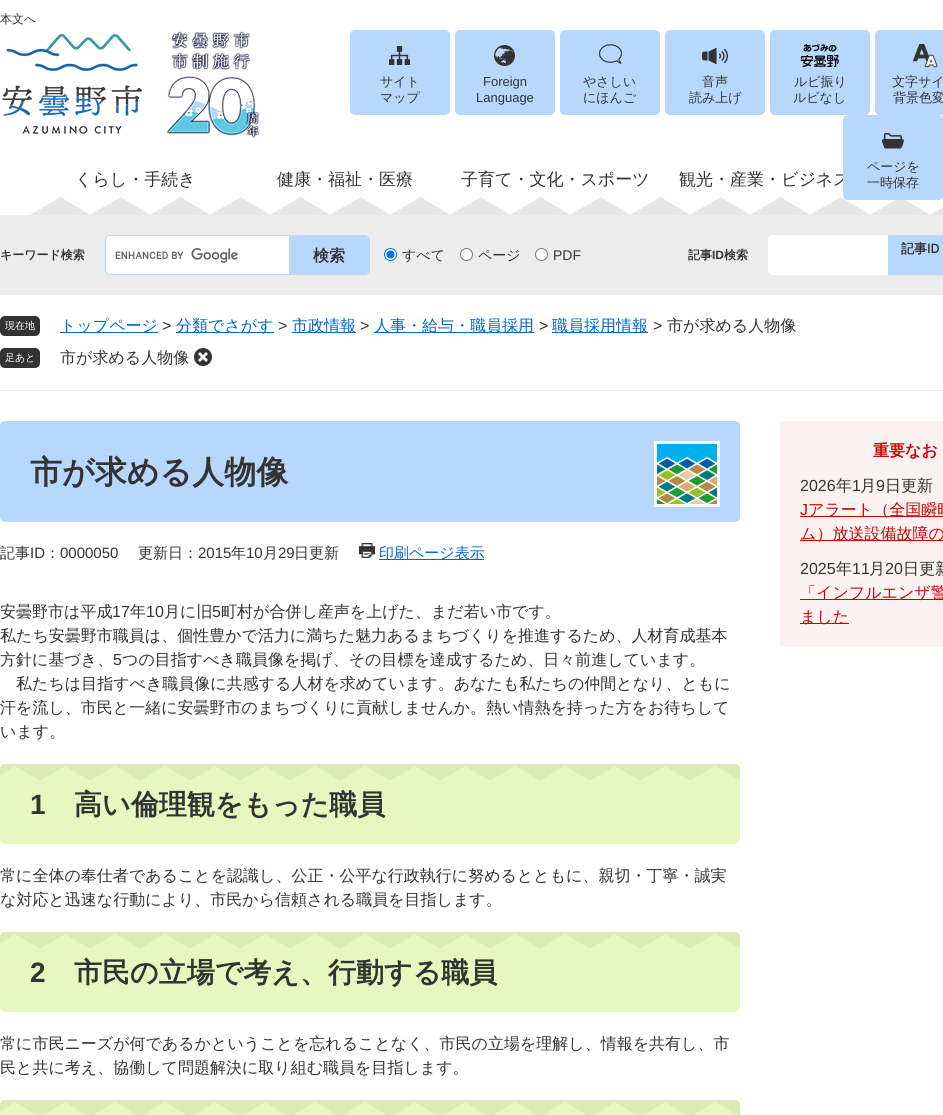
#include <cairo.h>
#include <math.h>
#include <stddef.h>


static void set_color(cairo_t *cr, unsigned color) {
    cairo_set_source_rgb(cr, (color >> 16) / 255.0, (color >> 8 & 255) / 255.0, (color & 255) / 255.0);
}

static void draw_text(cairo_t *cr, double x, double y, const char *s, const char *family, double size, int italic, int bold, unsigned color) {
    cairo_select_font_face(cr, family, italic ? CAIRO_FONT_SLANT_ITALIC : CAIRO_FONT_SLANT_NORMAL,
        bold ? CAIRO_FONT_WEIGHT_BOLD : CAIRO_FONT_WEIGHT_NORMAL);
    cairo_set_font_size(cr, size);
    set_color(cr, color);
    cairo_move_to(cr, x, y);
    cairo_show_text(cr, s);
}

static void fill_rect(cairo_t *cr, double x, double y, double w, double h, unsigned color) {
    set_color(cr, color);
    cairo_rectangle(cr, x, y, w, h);
    cairo_fill(cr);
}

static void rounded_rect(cairo_t *cr, double x, double y, double w, double h, double r) {
    cairo_new_sub_path(cr);
    cairo_arc(cr, x + w - r, y + h - r, r, 0, M_PI / 2);
    cairo_arc(cr, x + r, y + h - r, r, M_PI / 2, M_PI);
    cairo_arc(cr, x + r, y + r, r, M_PI, 1.5 * M_PI);
    cairo_arc(cr, x + w - r, y + r, r, 1.5 * M_PI, 2 * M_PI);
    cairo_close_path(cr);
}

static void draw_image(cairo_t *cr, const char *path, double x, double y, double w, double h) {
    cairo_surface_t *image = cairo_image_surface_create_from_png(path);
    cairo_save(cr);
    cairo_set_source_surface(cr, image, x, y);
    cairo_rectangle(cr, x, y, w, h);
    cairo_fill(cr);
    cairo_restore(cr);
    cairo_surface_destroy(image);
}

int main(void) {
    cairo_surface_t *surface = cairo_image_surface_create(CAIRO_FORMAT_RGB24, 943, 1115);
    cairo_t *cr = cairo_create(surface);
    cairo_font_options_t *options = cairo_font_options_create();
    cairo_font_options_set_hint_metrics(options, CAIRO_HINT_METRICS_OFF);
    cairo_font_options_set_hint_style(options, CAIRO_HINT_STYLE_NONE);
    cairo_set_font_options(cr, options);
    cairo_set_miter_limit(cr, 4);
    set_color(cr, 0xFFFFFF);
    cairo_paint(cr);
    draw_text(cr, 0, 23, "本文へ", "WenQuanYi Zen Hei Medium", 12, 0, 0, 0x333333);
    draw_image(cr, "assets/img1.png", 2, 31, 258, 107);
    set_color(cr, 0xB7D8FC);
    rounded_rect(cr, 350, 30, 100, 85, 5);
    cairo_fill(cr);
    draw_image(cr, "assets/img2.png", 389, 46, 21, 19);
    draw_text(cr, 380, 86, "サイト", "WenQuanYi Zen Hei Medium", 13, 0, 0, 0x333333);
    draw_text(cr, 380, 102, "マップ", "WenQuanYi Zen Hei Medium", 13, 0, 0, 0x333333);
    set_color(cr, 0xB7D8FC);
    rounded_rect(cr, 455, 30, 100, 85, 5);
    cairo_fill(cr);
    draw_image(cr, "assets/img3.png", 494, 45, 21, 21);
    draw_text(cr, 483, 86, "Foreign", "Liberation Sans", 13, 0, 0, 0x333333);
    draw_text(cr, 476, 102, "Language", "Liberation Sans", 13, 0, 0, 0x333333);
    set_color(cr, 0xB7D8FC);
    rounded_rect(cr, 560, 30, 100, 85, 5);
    cairo_fill(cr);
    draw_image(cr, "assets/img4.png", 599, 44, 23, 20);
    draw_text(cr, 583, 86, "やさしい", "WenQuanYi Zen Hei Medium", 13, 0, 0, 0x333333);
    draw_text(cr, 583, 102, "にほんご", "WenQuanYi Zen Hei Medium", 13, 0, 0, 0x333333);
    set_color(cr, 0xB7D8FC);
    rounded_rect(cr, 665, 30, 100, 85, 5);
    cairo_fill(cr);
    draw_image(cr, "assets/img5.png", 702, 48, 26, 16);
    draw_text(cr, 702, 86, "音声", "WenQuanYi Zen Hei Medium", 13, 0, 0, 0x333333);
    draw_text(cr, 689, 102, "読み上げ", "WenQuanYi Zen Hei Medium", 13, 0, 0, 0x333333);
    set_color(cr, 0xB7D8FC);
    rounded_rect(cr, 770, 30, 100, 85, 5);
    cairo_fill(cr);
    draw_image(cr, "assets/img6.png", 800, 44, 39, 24);
    draw_text(cr, 794, 86, "ルビ振り", "WenQuanYi Zen Hei Medium", 13, 0, 0, 0x333333);
    draw_text(cr, 793, 102, "ルビなし", "WenQuanYi Zen Hei Medium", 13, 0, 0, 0x333333);
    set_color(cr, 0xB7D8FC);
    rounded_rect(cr, 875, 30, 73, 85, 5);
    cairo_fill(cr);
    draw_image(cr, "assets/img7.png", 912, 44, 26, 24);
    draw_text(cr, 892, 86, "文字サイ", "WenQuanYi Zen Hei Medium", 13, 0, 0, 0x333333);
    draw_text(cr, 893, 102, "背景色変", "WenQuanYi Zen Hei Medium", 13, 0, 0, 0x333333);
    draw_image(cr, "assets/img10.png", 660, 197, 210, 18);
    draw_text(cr, 679, 185, "観光・産業・ビジネス", "WenQuanYi Zen Hei Medium", 17, 0, 0, 0x333333);
    set_color(cr, 0xB7D8FC);
    rounded_rect(cr, 843, 115, 100, 85, 5);
    cairo_fill(cr);
    draw_image(cr, "assets/img8.png", 882, 133, 22, 16);
    draw_text(cr, 867, 171, "ページを", "WenQuanYi Zen Hei Medium", 13, 0, 0, 0x333333);
    draw_text(cr, 867, 187, "一時保存", "WenQuanYi Zen Hei Medium", 13, 0, 0, 0x333333);
    draw_image(cr, "assets/img9.png", 30, 197, 210, 18);
    draw_text(cr, 75, 185, "くらし・手続き", "WenQuanYi Zen Hei Medium", 17, 0, 0, 0x333333);
    draw_image(cr, "assets/img10.png", 240, 197, 210, 18);
    draw_text(cr, 277, 185, "健康・福祉・医療", "WenQuanYi Zen Hei Medium", 17, 0, 0, 0x333333);
    draw_image(cr, "assets/img9.png", 450, 197, 210, 18);
    draw_text(cr, 461, 185, "子育て・文化・スポーツ", "WenQuanYi Zen Hei Medium", 17, 0, 0, 0x333333);
    draw_image(cr, "assets/img11.png", 870, 200, 73, 15);
    fill_rect(cr, 0, 215, 943, 80, 0xECECEC);
    draw_text(cr, 0, 259, "キーワード検索", "WenQuanYi Zen Hei", 12, 0, 1, 0x333333);
    rounded_rect(cr, 105.5, 235.5, 264, 39, 4.5);
    set_color(cr, 0xB7D8FC);
    cairo_set_line_width(cr, 1);
    cairo_stroke(cr);
    set_color(cr, 0xFFFFFF);
    cairo_new_path(cr);
    cairo_move_to(cr, 110, 236);
    cairo_line_to(cr, 289, 236);
    cairo_line_to(cr, 289, 274);
    cairo_line_to(cr, 110, 274);
    cairo_curve_to(cr, 108, 274, 106, 272, 106, 270);
    cairo_line_to(cr, 106, 240);
    cairo_curve_to(cr, 106, 238, 108, 236, 110, 236);
    cairo_close_path(cr);
    cairo_fill(cr);
    draw_image(cr, "assets/img12.png", 115, 248, 123, 15);
    set_color(cr, 0xB7D8FC);
    cairo_new_path(cr);
    cairo_move_to(cr, 289, 236);
    cairo_line_to(cr, 365, 236);
    cairo_curve_to(cr, 367, 236, 369, 238, 369, 240);
    cairo_line_to(cr, 369, 270);
    cairo_curve_to(cr, 369, 272, 367, 274, 365, 274);
    cairo_line_to(cr, 289, 274);
    cairo_close_path(cr);
    cairo_fill(cr);
    draw_text(cr, 313, 261, "検索", "WenQuanYi Zen Hei", 16, 0, 1, 0x333333);
    set_color(cr, 0xFFFFFF);
    cairo_new_path(cr);
    cairo_arc(cr, 390.5, 254.5, 6, 0, 2 * M_PI);
    cairo_fill_preserve(cr);
    set_color(cr, 0x0075FF);
    cairo_stroke(cr);
    cairo_arc(cr, 390.5, 254.5, 4, 0, 2 * M_PI);
    cairo_fill(cr);
    draw_text(cr, 402, 260, "すべて", "WenQuanYi Zen Hei Medium", 14, 0, 0, 0x333333);
    set_color(cr, 0xFFFFFF);
    cairo_new_path(cr);
    cairo_arc(cr, 466.5, 254.5, 6, 0, 2 * M_PI);
    cairo_fill_preserve(cr);
    set_color(cr, 0x767676);
    cairo_stroke(cr);
    draw_text(cr, 478, 260, "ページ", "WenQuanYi Zen Hei Medium", 14, 0, 0, 0x333333);
    set_color(cr, 0xFFFFFF);
    cairo_new_path(cr);
    cairo_arc(cr, 541.5, 254.5, 6, 0, 2 * M_PI);
    cairo_fill_preserve(cr);
    set_color(cr, 0x767676);
    cairo_stroke(cr);
    draw_text(cr, 553, 260, "PDF", "Liberation Sans", 14, 0, 0, 0x333333);
    draw_text(cr, 688, 259, "記事", "WenQuanYi Zen Hei", 12, 0, 1, 0x333333);
    draw_text(cr, 712, 259, "ID", "Liberation Sans", 12, 0, 1, 0x333333);
    draw_text(cr, 724, 259, "検索", "WenQuanYi Zen Hei", 12, 0, 1, 0x333333);
    set_color(cr, 0xFFFFFF);
    cairo_new_path(cr);
    cairo_move_to(cr, 773, 235);
    cairo_line_to(cr, 888, 235);
    cairo_line_to(cr, 888, 275);
    cairo_line_to(cr, 773, 275);
    cairo_curve_to(cr, 770, 275, 768, 273, 768, 270);
    cairo_line_to(cr, 768, 240);
    cairo_curve_to(cr, 768, 237, 770, 235, 773, 235);
    cairo_close_path(cr);
    cairo_fill(cr);
    fill_rect(cr, 888, 235, 55, 40, 0xB7D8FC);
    draw_text(cr, 901, 253, "記事ID", "WenQuanYi Zen Hei", 13, 0, 1, 0x333333);
    fill_rect(cr, 0, 390, 943, 1, 0xECECEC);
    set_color(cr, 0x333333);
    rounded_rect(cr, 0, 316, 40, 20, 5);
    cairo_fill(cr);
    draw_text(cr, 5, 329, "現在地", "WenQuanYi Zen Hei Medium", 10, 0, 0, 0xFFFFFF);
    fill_rect(cr, 60, 332, 98, 1, 0x0066CC);
    draw_text(cr, 60, 331, "トップページ", "WenQuanYi Zen Hei Medium", 16, 0, 0, 0x0066CC);
    draw_text(cr, 162, 331, ">", "Liberation Sans", 16, 0, 0, 0x333333);
    fill_rect(cr, 176, 332, 98, 1, 0x0066CC);
    draw_text(cr, 176, 331, "分類でさがす", "WenQuanYi Zen Hei Medium", 16, 0, 0, 0x0066CC);
    draw_text(cr, 278, 331, ">", "Liberation Sans", 16, 0, 0, 0x333333);
    fill_rect(cr, 292, 332, 64, 1, 0x0066CC);
    draw_text(cr, 292, 331, "市政情報", "WenQuanYi Zen Hei Medium", 16, 0, 0, 0x0066CC);
    draw_text(cr, 360, 331, ">", "Liberation Sans", 16, 0, 0, 0x333333);
    fill_rect(cr, 374, 332, 160, 1, 0x0066CC);
    draw_text(cr, 374, 331, "人事・給与・職員採用", "WenQuanYi Zen Hei Medium", 16, 0, 0, 0x0066CC);
    draw_text(cr, 539, 331, ">", "Liberation Sans", 16, 0, 0, 0x333333);
    fill_rect(cr, 552, 332, 96, 1, 0x0066CC);
    draw_text(cr, 552, 331, "職員採用情報", "WenQuanYi Zen Hei Medium", 16, 0, 0, 0x0066CC);
    draw_text(cr, 653, 331, ">", "Liberation Sans", 16, 0, 0, 0x333333);
    draw_text(cr, 667, 331, "市が求める人物像", "WenQuanYi Zen Hei Medium", 16, 0, 0, 0x333333);
    rounded_rect(cr, 0, 348, 40, 20, 5);
    cairo_fill(cr);
    draw_text(cr, 5, 361, "足あと", "WenQuanYi Zen Hei Medium", 10, 0, 0, 0xFFFFFF);
    draw_text(cr, 60, 363, "市が求める人物像", "WenQuanYi Zen Hei Medium", 16, 0, 0, 0x333333);
    draw_image(cr, "assets/img13.png", 194, 348, 18, 18);
    set_color(cr, 0xB7D8FC);
    rounded_rect(cr, 0, 421, 740, 101, 5);
    cairo_fill(cr);
    draw_image(cr, "assets/img14.png", 654, 441, 66, 66);
    draw_text(cr, 30, 483, "市が求める人物像", "WenQuanYi Zen Hei", 32, 0, 1, 0x333333);
    draw_text(cr, 0, 558, "記事", "WenQuanYi Zen Hei Medium", 15, 0, 0, 0x333333);
    draw_text(cr, 30, 558, "ID", "Liberation Sans", 15, 0, 0, 0x333333);
    draw_text(cr, 45, 558, "：", "WenQuanYi Zen Hei Medium", 15, 0, 0, 0x333333);
    draw_text(cr, 60, 558, "0000050", "Liberation Sans", 15, 0, 0, 0x333333);
    draw_text(cr, 138, 558, "更新日：", "WenQuanYi Zen Hei Medium", 15, 0, 0, 0x333333);
    draw_text(cr, 198, 558, "2015", "Liberation Sans", 15, 0, 0, 0x333333);
    draw_text(cr, 231, 558, "年", "WenQuanYi Zen Hei Medium", 15, 0, 0, 0x333333);
    draw_text(cr, 246, 558, "10", "Liberation Sans", 15, 0, 0, 0x333333);
    draw_text(cr, 263, 558, "月", "WenQuanYi Zen Hei Medium", 15, 0, 0, 0x333333);
    draw_text(cr, 278, 558, "29", "Liberation Sans", 15, 0, 0, 0x333333);
    draw_text(cr, 294, 558, "日更新", "WenQuanYi Zen Hei Medium", 15, 0, 0, 0x333333);
    draw_image(cr, "assets/img15.png", 359, 543, 16, 15);
    fill_rect(cr, 379, 559, 105, 1, 0x0066CC);
    draw_text(cr, 379, 558, "印刷ページ表示", "WenQuanYi Zen Hei Medium", 15, 0, 0, 0x0066CC);
    draw_text(cr, 0, 617, "安曇野市は平成", "WenQuanYi Zen Hei Medium", 16, 0, 0, 0x333333);
    draw_text(cr, 112, 617, "17", "Liberation Sans", 16, 0, 0, 0x333333);
    draw_text(cr, 130, 617, "年", "WenQuanYi Zen Hei Medium", 16, 0, 0, 0x333333);
    draw_text(cr, 146, 617, "10", "Liberation Sans", 16, 0, 0, 0x333333);
    draw_text(cr, 164, 617, "月に旧", "WenQuanYi Zen Hei Medium", 16, 0, 0, 0x333333);
    draw_text(cr, 212, 617, "5", "Liberation Sans", 16, 0, 0, 0x333333);
    draw_text(cr, 221, 617, "町村が合併し産声を上げた、まだ若い市です。", "WenQuanYi Zen Hei Medium", 16, 0, 0, 0x333333);
    draw_text(cr, 0, 641, "私たち安曇野市職員は、個性豊かで活力に満ちた魅力あるまちづくりを推進するため、人材育成基本", "WenQuanYi Zen Hei Medium", 16, 0, 0, 0x333333);
    draw_text(cr, 0, 665, "方針に基づき、", "WenQuanYi Zen Hei Medium", 16, 0, 0, 0x333333);
    draw_text(cr, 113, 665, "5", "Liberation Sans", 16, 0, 0, 0x333333);
    draw_text(cr, 122, 665, "つの目指すべき職員像を掲げ、その目標を達成するため、日々前進しています。", "WenQuanYi Zen Hei Medium", 16, 0, 0, 0x333333);
    draw_text(cr, 16, 689, "私たちは目指すべき職員像に共感する人材を求めています。あなたも私たちの仲間となり、ともに", "WenQuanYi Zen Hei Medium", 16, 0, 0, 0x333333);
    draw_text(cr, 0, 713, "汗を流し、市民と一緒に安曇野市のまちづくりに貢献しませんか。熱い情熱を持った方をお待ちして", "WenQuanYi Zen Hei Medium", 16, 0, 0, 0x333333);
    draw_text(cr, 0, 737, "います。", "WenQuanYi Zen Hei Medium", 16, 0, 0, 0x333333);
    set_color(cr, 0xE6F8BF);
    rounded_rect(cr, 0, 764, 740, 80, 5);
    cairo_fill(cr);
    draw_image(cr, "assets/img16.png", 0, 764, 740, 16);
    draw_text(cr, 30, 814, "1", "Liberation Sans", 28, 0, 1, 0x333333);
    draw_text(cr, 74, 814, "高い倫理観をもった職員", "WenQuanYi Zen Hei", 28, 0, 1, 0x333333);
    draw_text(cr, 0, 881, "常に全体の奉仕者であることを認識し、公正・公平な行政執行に努めるとともに、親切・丁寧・誠実", "WenQuanYi Zen Hei Medium", 16, 0, 0, 0x333333);
    draw_text(cr, 0, 905, "な対応と迅速な行動により、市民から信頼される職員を目指します。", "WenQuanYi Zen Hei Medium", 16, 0, 0, 0x333333);
    set_color(cr, 0xE6F8BF);
    rounded_rect(cr, 0, 932, 740, 80, 5);
    cairo_fill(cr);
    draw_image(cr, "assets/img16.png", 0, 932, 740, 16);
    draw_text(cr, 30, 982, "2", "Liberation Sans", 28, 0, 1, 0x333333);
    draw_text(cr, 74, 982, "市民の立場で考え、行動する職員", "WenQuanYi Zen Hei", 28, 0, 1, 0x333333);
    draw_text(cr, 0, 1049, "常に市民ニーズが何であるかということを忘れることなく、市民の立場を理解し、情報を共有し、市", "WenQuanYi Zen Hei Medium", 16, 0, 0, 0x333333);
    draw_text(cr, 0, 1073, "民と共に考え、協働して問題解決に取り組む職員を目指します。", "WenQuanYi Zen Hei Medium", 16, 0, 0, 0x333333);
    set_color(cr, 0xE6F8BF);
    rounded_rect(cr, 0, 1100, 740, 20, 5);
    cairo_fill(cr);
    draw_image(cr, "assets/img17.png", 0, 1100, 740, 15);
    fill_rect(cr, 780, 421, 163, 226, 0xFDF2F2);
    draw_text(cr, 873, 456, "重要なお", "WenQuanYi Zen Hei", 16, 0, 1, 0xCC0000);
    draw_text(cr, 800, 491, "2026", "Liberation Sans", 16, 0, 0, 0x333333);
    draw_text(cr, 836, 491, "年", "WenQuanYi Zen Hei Medium", 16, 0, 0, 0x333333);
    draw_text(cr, 852, 491, "1", "Liberation Sans", 16, 0, 0, 0x333333);
    draw_text(cr, 860, 491, "月", "WenQuanYi Zen Hei Medium", 16, 0, 0, 0x333333);
    draw_text(cr, 876, 491, "9", "Liberation Sans", 16, 0, 0, 0x333333);
    draw_text(cr, 885, 491, "日更新", "WenQuanYi Zen Hei Medium", 16, 0, 0, 0x333333);
    draw_text(cr, 800, 515, "J", "Liberation Sans", 16, 0, 0, 0xCC0000);
    fill_rect(cr, 800, 516, 143, 1, 0xCC0000);
    draw_text(cr, 808, 515, "アラート（全国瞬時", "WenQuanYi Zen Hei Medium", 16, 0, 0, 0xCC0000);
    fill_rect(cr, 800, 540, 143, 1, 0xCC0000);
    draw_text(cr, 800, 539, "ム）放送設備故障の", "WenQuanYi Zen Hei Medium", 16, 0, 0, 0xCC0000);
    draw_text(cr, 800, 574, "2025", "Liberation Sans", 16, 0, 0, 0x333333);
    draw_text(cr, 836, 574, "年", "WenQuanYi Zen Hei Medium", 16, 0, 0, 0x333333);
    draw_text(cr, 852, 574, "11", "Liberation Sans", 16, 0, 0, 0x333333);
    draw_text(cr, 869, 574, "月", "WenQuanYi Zen Hei Medium", 16, 0, 0, 0x333333);
    draw_text(cr, 885, 574, "20", "Liberation Sans", 16, 0, 0, 0x333333);
    draw_text(cr, 903, 574, "日更新", "WenQuanYi Zen Hei Medium", 16, 0, 0, 0x333333);
    fill_rect(cr, 800, 599, 143, 1, 0xCC0000);
    draw_text(cr, 800, 598, "「インフルエンザ警", "WenQuanYi Zen Hei Medium", 16, 0, 0, 0xCC0000);
    fill_rect(cr, 800, 623, 49, 1, 0xCC0000);
    draw_text(cr, 800, 622, "ました", "WenQuanYi Zen Hei Medium", 16, 0, 0, 0xCC0000);
    cairo_surface_write_to_png(surface, "output.png");
    cairo_font_options_destroy(options);
    cairo_destroy(cr);
    cairo_surface_destroy(surface);
    return 0;
}
